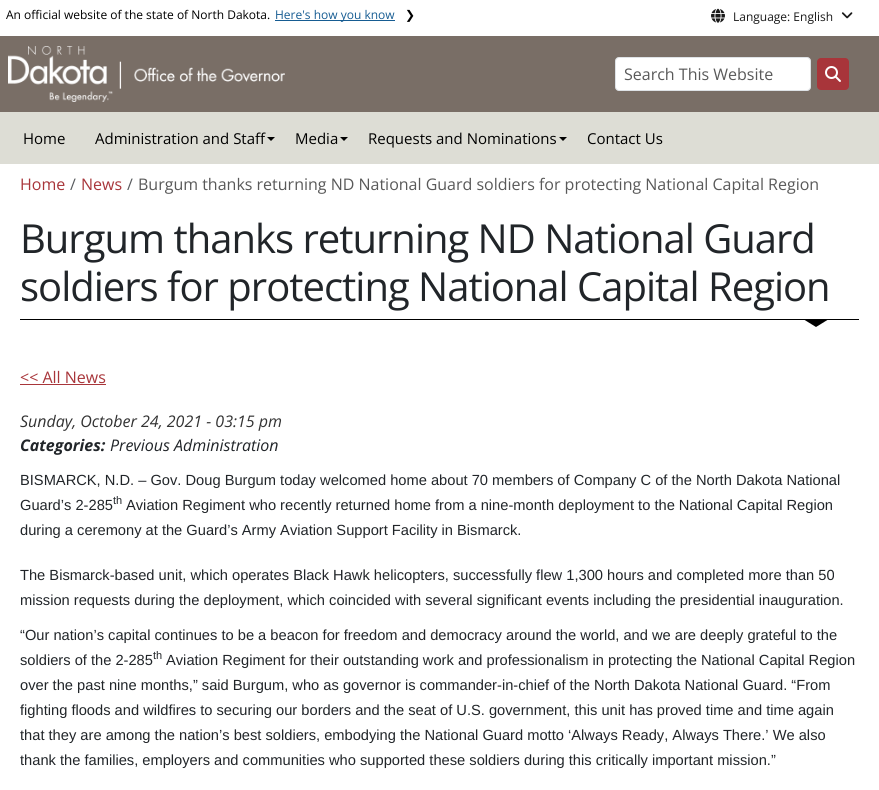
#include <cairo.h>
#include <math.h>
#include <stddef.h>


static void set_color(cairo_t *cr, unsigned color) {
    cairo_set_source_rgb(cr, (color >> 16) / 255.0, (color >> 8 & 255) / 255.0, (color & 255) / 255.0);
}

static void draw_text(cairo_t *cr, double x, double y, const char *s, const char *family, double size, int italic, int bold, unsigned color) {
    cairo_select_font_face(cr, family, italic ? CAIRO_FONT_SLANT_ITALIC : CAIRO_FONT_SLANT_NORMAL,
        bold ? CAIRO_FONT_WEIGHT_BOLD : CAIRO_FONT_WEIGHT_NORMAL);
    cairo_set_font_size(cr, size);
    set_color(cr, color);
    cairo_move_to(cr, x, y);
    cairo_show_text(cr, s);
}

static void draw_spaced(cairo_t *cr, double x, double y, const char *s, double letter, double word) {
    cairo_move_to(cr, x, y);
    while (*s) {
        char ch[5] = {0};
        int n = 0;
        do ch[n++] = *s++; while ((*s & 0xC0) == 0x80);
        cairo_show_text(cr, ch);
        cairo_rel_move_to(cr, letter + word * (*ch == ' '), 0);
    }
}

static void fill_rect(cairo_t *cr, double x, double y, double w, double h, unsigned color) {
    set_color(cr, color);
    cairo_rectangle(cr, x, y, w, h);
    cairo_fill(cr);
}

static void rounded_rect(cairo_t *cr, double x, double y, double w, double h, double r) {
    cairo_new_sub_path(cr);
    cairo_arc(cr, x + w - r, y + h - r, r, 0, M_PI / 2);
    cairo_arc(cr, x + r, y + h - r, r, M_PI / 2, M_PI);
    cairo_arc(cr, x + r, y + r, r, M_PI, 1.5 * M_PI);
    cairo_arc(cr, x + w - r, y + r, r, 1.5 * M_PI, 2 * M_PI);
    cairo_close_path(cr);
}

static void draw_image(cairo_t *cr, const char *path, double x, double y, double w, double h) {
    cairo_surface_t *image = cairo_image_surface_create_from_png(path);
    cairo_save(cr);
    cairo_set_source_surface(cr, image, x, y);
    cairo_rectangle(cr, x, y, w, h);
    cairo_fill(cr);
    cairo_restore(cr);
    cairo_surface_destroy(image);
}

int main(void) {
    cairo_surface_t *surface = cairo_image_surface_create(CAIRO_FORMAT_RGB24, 879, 790);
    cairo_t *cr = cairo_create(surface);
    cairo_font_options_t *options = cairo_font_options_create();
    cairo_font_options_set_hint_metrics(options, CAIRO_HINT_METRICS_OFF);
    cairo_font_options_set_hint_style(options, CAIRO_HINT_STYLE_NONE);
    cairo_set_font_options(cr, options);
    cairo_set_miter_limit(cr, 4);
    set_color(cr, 0xFFFFFF);
    cairo_paint(cr);
    draw_text(cr, 6, 19, "An official website of the state of North Dakota.", "Open Sans", 12, 0, 0, 0x000000);
    fill_rect(cr, 275, 20, 120, 1, 0x165C92);
    draw_text(cr, 275, 19, "Here's how you know", "Open Sans", 12, 0, 0, 0x165C92);
    draw_text(cr, 405, 19, "❯", "DejaVu Sans", 12, 0, 0, 0x000000);
    draw_image(cr, "assets/img1.png", 711, 8, 14, 15);
    draw_text(cr, 733, 21, "Language: English", "Open Sans", 12, 0, 0, 0x1A1A1A);
    draw_image(cr, "assets/img2.png", 841, 12, 12, 7);
    fill_rect(cr, 0, 36, 879, 76, 0x796E66);
    draw_image(cr, "assets/img3.png", 8, 46, 277, 56);
    set_color(cr, 0xFFFFFF);
    rounded_rect(cr, 615.5, 57.5, 195, 33, 3.5);
    cairo_fill_preserve(cr);
    set_color(cr, 0xDEE2E6);
    cairo_set_line_width(cr, 1);
    cairo_stroke(cr);
    draw_text(cr, 624, 80, "Search This Website", "Open Sans", 16, 0, 0, 0x595959);
    set_color(cr, 0xA8353A);
    rounded_rect(cr, 817, 58, 32, 32, 4);
    cairo_fill(cr);
    draw_image(cr, "assets/img4.png", 825, 66, 16, 16);
    fill_rect(cr, 0, 112, 879, 52, 0xDDDDD5);
    draw_text(cr, 23, 144, "Home", "Open Sans", 15, 0, 0, 0x000000);
    draw_text(cr, 95, 144, "Administration and Staff", "Open Sans", 15, 0, 0, 0x000000);
    cairo_new_path(cr);
    cairo_move_to(cr, 267, 137);
    cairo_line_to(cr, 275, 137);
    cairo_line_to(cr, 271, 141);
    cairo_close_path(cr);
    cairo_fill(cr);
    draw_text(cr, 295, 144, "Media", "Open Sans", 15, 0, 0, 0x000000);
    cairo_new_path(cr);
    cairo_move_to(cr, 340, 137);
    cairo_line_to(cr, 348, 137);
    cairo_line_to(cr, 344, 141);
    cairo_close_path(cr);
    cairo_fill(cr);
    draw_text(cr, 368, 144, "Requests and Nominations", "Open Sans", 15, 0, 0, 0x000000);
    cairo_new_path(cr);
    cairo_move_to(cr, 559, 137);
    cairo_line_to(cr, 567, 137);
    cairo_line_to(cr, 563, 141);
    cairo_close_path(cr);
    cairo_fill(cr);
    draw_text(cr, 587, 144, "Contact Us", "Open Sans", 15, 0, 0, 0x000000);
    draw_text(cr, 20, 190, "Home", "Open Sans", 16, 0, 0, 0xA8353A);
    draw_text(cr, 70, 190, "/", "Open Sans", 16, 0, 0, 0x595C5F);
    draw_text(cr, 81, 190, "News", "Open Sans", 16, 0, 0, 0xA8353A);
    draw_text(cr, 127, 190, "/", "Open Sans", 16, 0, 0, 0x595C5F);
    draw_text(cr, 138, 190, "Burgum thanks returning ND National Guard soldiers for protecting National Capital Region", "Open Sans", 16, 0, 0, 0x595959);
    fill_rect(cr, 20, 319, 839, 1, 0x000000);
    cairo_set_font_size(cr, 40);
    set_color(cr, 0x212529);
    draw_spaced(cr, 20, 253, "Burgum thanks returning ND National Guard", -1, 0);
    draw_spaced(cr, 20, 301, "soldiers for protecting National Capital Region", -1, 0);
    set_color(cr, 0x000000);
    cairo_new_path(cr);
    cairo_move_to(cr, 803, 319);
    cairo_line_to(cr, 829, 319);
    cairo_line_to(cr, 816, 327);
    cairo_close_path(cr);
    cairo_fill(cr);
    draw_text(cr, 20, 383, "<< All News", "Open Sans", 16, 0, 0, 0xA8353A);
    fill_rect(cr, 20, 384, 86, 1, 0xA8353A);
    draw_text(cr, 20, 427, "Sunday, October 24, 2021 - 03:15 pm", "Open Sans", 16, 1, 0, 0x333333);
    draw_text(cr, 20, 451, "Categories:", "Open Sans", 16, 1, 1, 0x212529);
    draw_text(cr, 110, 451, "Previous Administration", "Open Sans", 16, 1, 0, 0x212529);
    draw_text(cr, 20, 485, "BISMARCK, N.D. – Gov. Doug Burgum today welcomed home about 70 members of Company C of the North Dakota National", "Liberation Sans", 14.67, 0, 0, 0x212529);
    draw_text(cr, 20, 510, "Guard’s 2-285", "Liberation Sans", 14.67, 0, 0, 0x212529);
    draw_text(cr, 113, 504, "th", "Liberation Sans", 11, 0, 0, 0x212529);
    draw_text(cr, 126, 510, "Aviation Regiment who recently returned home from a nine-month deployment to the National Capital Region", "Liberation Sans", 14.67, 0, 0, 0x212529);
    draw_text(cr, 20, 535, "during a ceremony at the Guard’s Army Aviation Support Facility in Bismarck.", "Liberation Sans", 14.67, 0, 0, 0x212529);
    draw_text(cr, 20, 580, "The Bismarck-based unit, which operates Black Hawk helicopters, successfully flew 1,300 hours and completed more than 50", "Liberation Sans", 14.67, 0, 0, 0x212529);
    draw_text(cr, 20, 605, "mission requests during the deployment, which coincided with several significant events including the presidential inauguration.", "Liberation Sans", 14.67, 0, 0, 0x212529);
    draw_text(cr, 20, 640, "“Our nation’s capital continues to be a beacon for freedom and democracy around the world, and we are deeply grateful to the", "Liberation Sans", 14.67, 0, 0, 0x212529);
    draw_text(cr, 20, 665, "soldiers of the 2-285", "Liberation Sans", 14.67, 0, 0, 0x212529);
    draw_text(cr, 153, 659, "th", "Liberation Sans", 11, 0, 0, 0x212529);
    draw_text(cr, 166, 665, "Aviation Regiment for their outstanding work and professionalism in protecting the National Capital Region", "Liberation Sans", 14.67, 0, 0, 0x212529);
    draw_text(cr, 20, 690, "over the past nine months,” said Burgum, who as governor is commander-in-chief of the North Dakota National Guard. “From", "Liberation Sans", 14.67, 0, 0, 0x212529);
    draw_text(cr, 20, 715, "fighting floods and wildfires to securing our borders and the seat of U.S. government, this unit has proved time and time again", "Liberation Sans", 14.67, 0, 0, 0x212529);
    draw_text(cr, 20, 740, "that they are among the nation’s best soldiers, embodying the National Guard motto ‘Always Ready, Always There.’ We also", "Liberation Sans", 14.67, 0, 0, 0x212529);
    draw_text(cr, 20, 765, "thank the families, employers and communities who supported these soldiers during this critically important mission.”", "Liberation Sans", 14.67, 0, 0, 0x212529);
    cairo_surface_write_to_png(surface, "output.png");
    cairo_font_options_destroy(options);
    cairo_destroy(cr);
    cairo_surface_destroy(surface);
    return 0;
}
